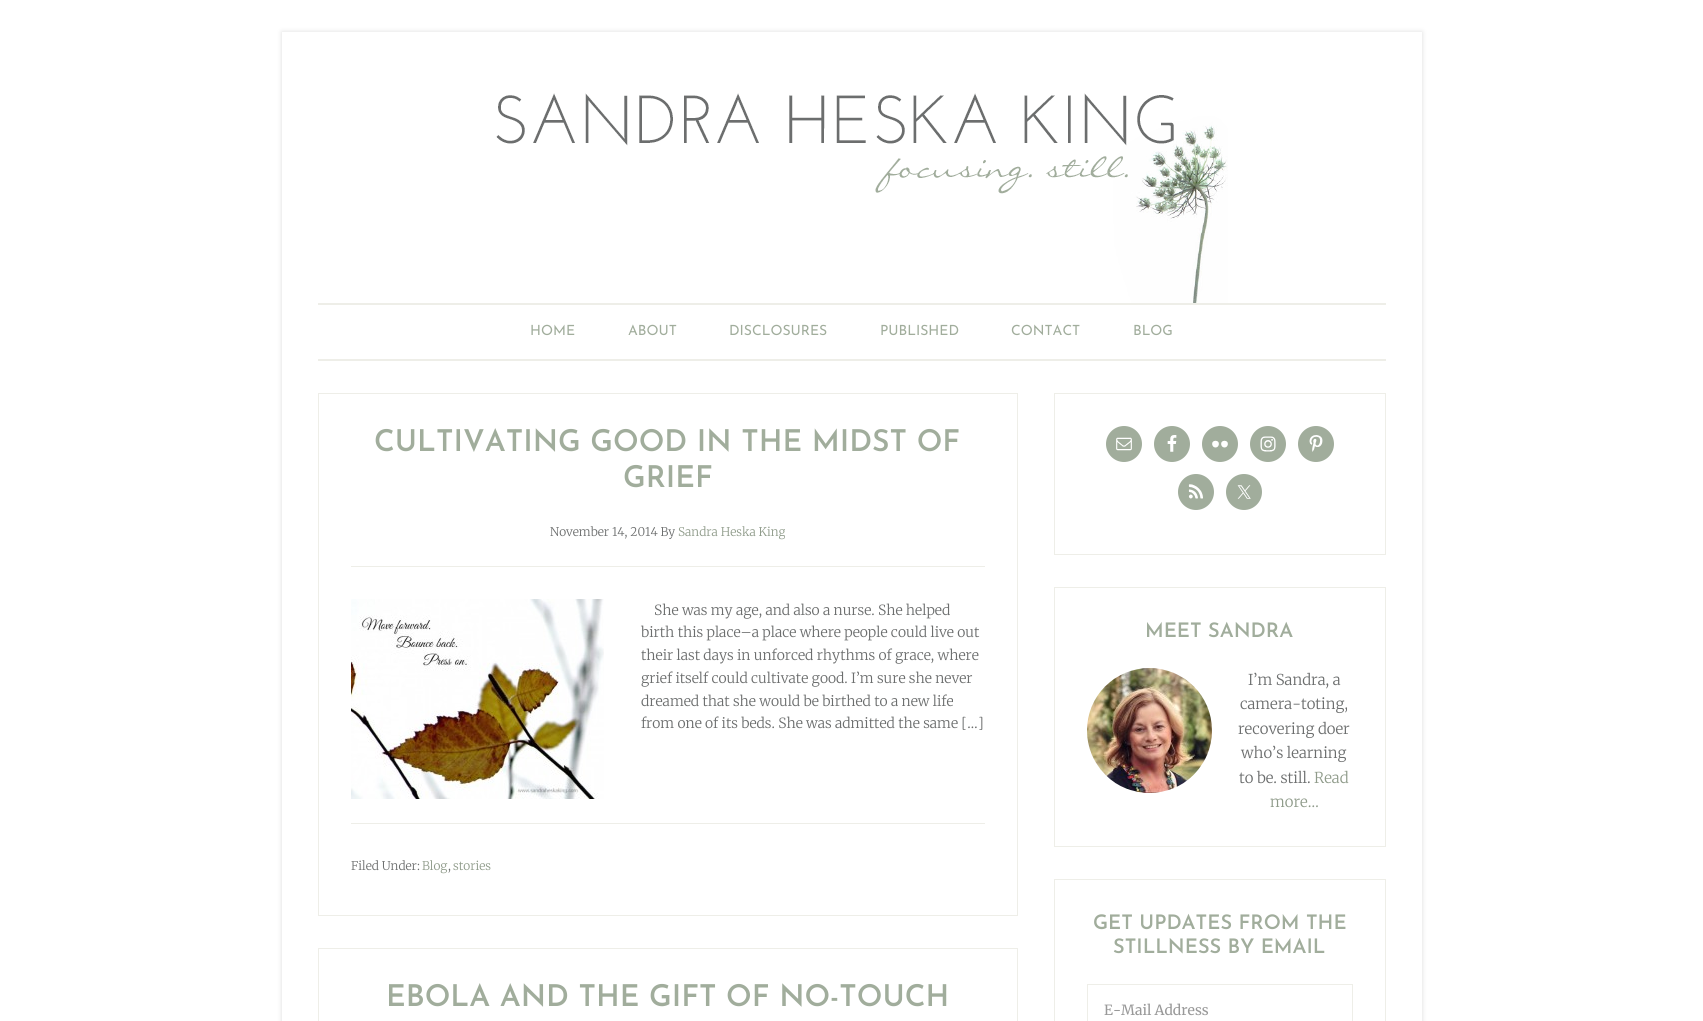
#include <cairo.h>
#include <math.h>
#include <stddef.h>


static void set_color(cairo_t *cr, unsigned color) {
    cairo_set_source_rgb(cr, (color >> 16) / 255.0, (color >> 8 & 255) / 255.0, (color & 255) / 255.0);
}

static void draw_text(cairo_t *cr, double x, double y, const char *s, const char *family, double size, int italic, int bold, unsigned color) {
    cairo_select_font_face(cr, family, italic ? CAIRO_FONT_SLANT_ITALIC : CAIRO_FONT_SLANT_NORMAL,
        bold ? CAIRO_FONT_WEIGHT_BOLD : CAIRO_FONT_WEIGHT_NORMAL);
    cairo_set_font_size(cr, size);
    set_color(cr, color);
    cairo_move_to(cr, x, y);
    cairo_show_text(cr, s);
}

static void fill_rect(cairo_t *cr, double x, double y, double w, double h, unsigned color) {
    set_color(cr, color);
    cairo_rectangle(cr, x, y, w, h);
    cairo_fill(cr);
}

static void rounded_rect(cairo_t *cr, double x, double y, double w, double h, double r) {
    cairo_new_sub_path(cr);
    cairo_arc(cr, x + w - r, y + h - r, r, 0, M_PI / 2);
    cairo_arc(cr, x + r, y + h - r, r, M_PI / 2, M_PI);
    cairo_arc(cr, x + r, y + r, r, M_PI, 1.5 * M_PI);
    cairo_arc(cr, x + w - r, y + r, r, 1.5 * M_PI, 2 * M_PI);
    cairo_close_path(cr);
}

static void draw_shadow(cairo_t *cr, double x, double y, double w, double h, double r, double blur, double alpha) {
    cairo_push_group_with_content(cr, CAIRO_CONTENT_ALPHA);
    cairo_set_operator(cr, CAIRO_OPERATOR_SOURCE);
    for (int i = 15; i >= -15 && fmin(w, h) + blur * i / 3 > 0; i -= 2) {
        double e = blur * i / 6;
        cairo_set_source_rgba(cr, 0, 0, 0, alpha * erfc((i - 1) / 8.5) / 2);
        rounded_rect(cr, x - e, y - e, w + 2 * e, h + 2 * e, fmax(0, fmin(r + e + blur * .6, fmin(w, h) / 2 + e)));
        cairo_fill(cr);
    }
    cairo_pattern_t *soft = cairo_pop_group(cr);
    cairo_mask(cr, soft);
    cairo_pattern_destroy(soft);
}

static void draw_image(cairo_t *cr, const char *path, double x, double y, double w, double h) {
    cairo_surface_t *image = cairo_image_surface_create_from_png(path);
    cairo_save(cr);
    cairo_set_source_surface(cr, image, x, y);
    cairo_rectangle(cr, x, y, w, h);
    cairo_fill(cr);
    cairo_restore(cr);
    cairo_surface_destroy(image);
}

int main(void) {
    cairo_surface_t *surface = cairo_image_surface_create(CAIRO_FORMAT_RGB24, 1703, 1021);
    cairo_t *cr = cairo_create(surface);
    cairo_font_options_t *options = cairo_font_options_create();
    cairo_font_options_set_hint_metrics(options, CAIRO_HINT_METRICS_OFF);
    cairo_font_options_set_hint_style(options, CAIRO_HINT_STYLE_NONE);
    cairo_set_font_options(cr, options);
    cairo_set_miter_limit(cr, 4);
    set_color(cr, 0xFFFFFF);
    cairo_paint(cr);
    cairo_save(cr);
    cairo_set_fill_rule(cr, CAIRO_FILL_RULE_EVEN_ODD);
    cairo_new_path(cr);
    cairo_move_to(cr, 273, 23);
    cairo_line_to(cr, 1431, 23);
    cairo_line_to(cr, 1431, 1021);
    cairo_line_to(cr, 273, 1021);
    cairo_close_path(cr);
    cairo_move_to(cr, 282, 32);
    cairo_line_to(cr, 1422, 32);
    cairo_line_to(cr, 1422, 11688);
    cairo_line_to(cr, 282, 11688);
    cairo_close_path(cr);
    cairo_clip(cr);
    set_color(cr, 0xDDDDDD);
    draw_shadow(cr, 282, 32, 1140, 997, 0, 2.5, 1);
    cairo_restore(cr);
    draw_image(cr, "assets/img1.png", 496, 93, 732, 210);
    fill_rect(cr, 318, 303, 1068, 2, 0xEEEEE8);
    fill_rect(cr, 318, 359, 1068, 2, 0xEEEEE8);
    draw_text(cr, 530, 335, "HOME", "Josefin Sans", 14, 0, 0, 0xA1AD9C);
    draw_text(cr, 628, 335, "ABOUT", "Josefin Sans", 14, 0, 0, 0xA1AD9C);
    draw_text(cr, 729, 335, "DISCLOSURES", "Josefin Sans", 14, 0, 0, 0xA1AD9C);
    draw_text(cr, 880, 335, "PUBLISHED", "Josefin Sans", 14, 0, 0, 0xA1AD9C);
    draw_text(cr, 1011, 335, "CONTACT", "Josefin Sans", 14, 0, 0, 0xA1AD9C);
    draw_text(cr, 1133, 335, "BLOG", "Josefin Sans", 14, 0, 0, 0xA1AD9C);
    cairo_rectangle(cr, 318.5, 393.5, 699, 522);
    set_color(cr, 0xEEEEE8);
    cairo_set_line_width(cr, 1);
    cairo_stroke(cr);
    fill_rect(cr, 351, 566, 634, 1, 0xEEEEE8);
    draw_text(cr, 374, 451, "CULTIVATING GOOD IN THE MIDST OF", "Josefin Sans SemiBold", 30, 0, 0, 0xA1AD9C);
    draw_text(cr, 623, 487, "GRIEF", "Josefin Sans SemiBold", 30, 0, 0, 0xA1AD9C);
    draw_text(cr, 550, 536, "November 14, 2014 By", "Merriweather Light", 12, 0, 0, 0x6C6E6E);
    draw_text(cr, 678, 536, "Sandra Heska King", "Merriweather Light", 12, 0, 0, 0x8F9B8A);
    draw_image(cr, "assets/img2.png", 351, 599, 253, 200);
    draw_text(cr, 654, 615, "She was my age, and also a nurse. She helped", "Merriweather Light", 14, 0, 0, 0x6C6E6E);
    draw_text(cr, 641, 637, "birth this place–a place where people could live out", "Merriweather Light", 14, 0, 0, 0x6C6E6E);
    draw_text(cr, 641, 660, "their last days in unforced rhythms of grace, where", "Merriweather Light", 14, 0, 0, 0x6C6E6E);
    draw_text(cr, 641, 683, "grief itself could cultivate good. I’m sure she never", "Merriweather Light", 14, 0, 0, 0x6C6E6E);
    draw_text(cr, 641, 706, "dreamed that she would be birthed to a new life", "Merriweather Light", 14, 0, 0, 0x6C6E6E);
    draw_text(cr, 641, 728, "from one of its beds. She was admitted the same […]", "Merriweather Light", 14, 0, 0, 0x6C6E6E);
    fill_rect(cr, 351, 823, 634, 1, 0xEEEEE8);
    draw_text(cr, 351, 870, "Filed Under:", "Merriweather Light", 12, 0, 0, 0x6C6E6E);
    draw_text(cr, 422, 870, "Blog", "Merriweather Light", 12, 0, 0, 0x8F9B8A);
    draw_text(cr, 448, 870, ",", "Merriweather Light", 12, 0, 0, 0x6C6E6E);
    draw_text(cr, 453, 870, "stories", "Merriweather Light", 12, 0, 0, 0x8F9B8A);
    cairo_rectangle(cr, 318.5, 948.5, 699, 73);
    set_color(cr, 0xEEEEE8);
    cairo_stroke(cr);
    draw_text(cr, 386, 1006, "EBOLA AND THE GIFT OF NO-TOUCH", "Josefin Sans SemiBold", 30, 0, 0, 0xA1AD9C);
    cairo_rectangle(cr, 1054.5, 393.5, 331, 161);
    set_color(cr, 0xEEEEE8);
    cairo_stroke(cr);
    set_color(cr, 0xA1AD9C);
    cairo_arc(cr, 1124, 444, 18, 0, 2 * M_PI);
    cairo_fill(cr);
    draw_image(cr, "assets/img3.png", 1116, 437, 16, 14);
    cairo_arc(cr, 1172, 444, 18, 0, 2 * M_PI);
    cairo_fill(cr);
    draw_image(cr, "assets/img4.png", 1167, 435, 10, 17);
    cairo_arc(cr, 1220, 444, 18, 0, 2 * M_PI);
    cairo_fill(cr);
    draw_image(cr, "assets/img5.png", 1212, 440, 16, 8);
    cairo_arc(cr, 1268, 444, 18, 0, 2 * M_PI);
    cairo_fill(cr);
    draw_image(cr, "assets/img6.png", 1260, 436, 16, 16);
    cairo_arc(cr, 1316, 444, 18, 0, 2 * M_PI);
    cairo_fill(cr);
    draw_image(cr, "assets/img7.png", 1309, 435, 14, 17);
    cairo_arc(cr, 1196, 492, 18, 0, 2 * M_PI);
    cairo_fill(cr);
    draw_image(cr, "assets/img8.png", 1188, 484, 15, 15);
    cairo_arc(cr, 1244, 492, 18, 0, 2 * M_PI);
    cairo_fill(cr);
    draw_image(cr, "assets/img9.png", 1237, 485, 14, 14);
    cairo_rectangle(cr, 1054.5, 587.5, 331, 259);
    set_color(cr, 0xEEEEE8);
    cairo_stroke(cr);
    draw_text(cr, 1145, 637, "MEET SANDRA", "Josefin Sans SemiBold", 20, 0, 0, 0xA1AD9C);
    draw_image(cr, "assets/img10.png", 1087, 668, 125, 125);
    draw_text(cr, 1248, 685, "I’m Sandra, a", "Merriweather Light", 15, 0, 0, 0x6C6E6E);
    draw_text(cr, 1240, 709, "camera-toting,", "Merriweather Light", 15, 0, 0, 0x6C6E6E);
    draw_text(cr, 1238, 734, "recovering doer", "Merriweather Light", 15, 0, 0, 0x6C6E6E);
    draw_text(cr, 1241, 758, "who’s learning", "Merriweather Light", 15, 0, 0, 0x6C6E6E);
    draw_text(cr, 1239, 783, "to be. still.", "Merriweather Light", 15, 0, 0, 0x6C6E6E);
    draw_text(cr, 1314, 783, "Read", "Merriweather Light", 15, 0, 0, 0x8F9B8A);
    draw_text(cr, 1270, 807, "more…", "Merriweather Light", 15, 0, 0, 0x8F9B8A);
    cairo_rectangle(cr, 1054.5, 879.5, 331, 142);
    set_color(cr, 0xEEEEE8);
    cairo_stroke(cr);
    draw_text(cr, 1093, 929, "GET UPDATES FROM THE", "Josefin Sans SemiBold", 20, 0, 0, 0xA1AD9C);
    draw_text(cr, 1113, 953, "STILLNESS BY EMAIL", "Josefin Sans SemiBold", 20, 0, 0, 0xA1AD9C);
    cairo_rectangle(cr, 1087.5, 984.5, 265, 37);
    set_color(cr, 0xEEEEE8);
    cairo_stroke(cr);
    draw_text(cr, 1104, 1015, "E-Mail Address", "Merriweather", 14, 0, 0, 0x999999);
    cairo_surface_write_to_png(surface, "output.png");
    cairo_font_options_destroy(options);
    cairo_destroy(cr);
    cairo_surface_destroy(surface);
    return 0;
}
